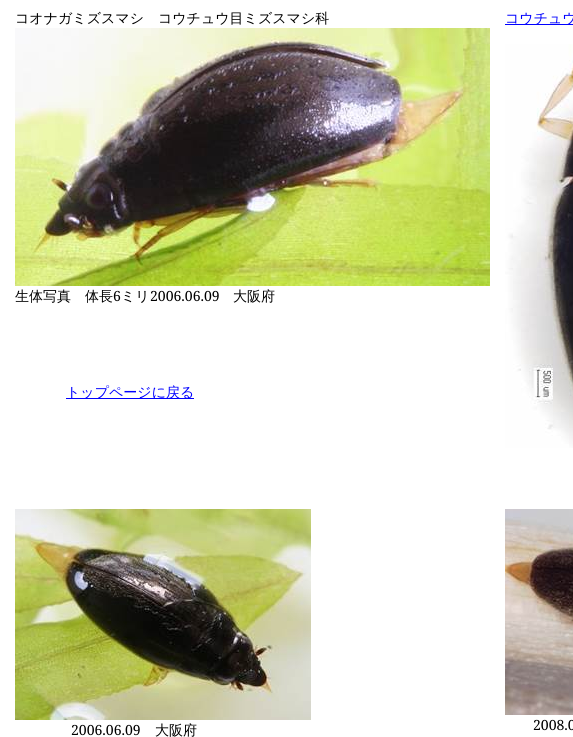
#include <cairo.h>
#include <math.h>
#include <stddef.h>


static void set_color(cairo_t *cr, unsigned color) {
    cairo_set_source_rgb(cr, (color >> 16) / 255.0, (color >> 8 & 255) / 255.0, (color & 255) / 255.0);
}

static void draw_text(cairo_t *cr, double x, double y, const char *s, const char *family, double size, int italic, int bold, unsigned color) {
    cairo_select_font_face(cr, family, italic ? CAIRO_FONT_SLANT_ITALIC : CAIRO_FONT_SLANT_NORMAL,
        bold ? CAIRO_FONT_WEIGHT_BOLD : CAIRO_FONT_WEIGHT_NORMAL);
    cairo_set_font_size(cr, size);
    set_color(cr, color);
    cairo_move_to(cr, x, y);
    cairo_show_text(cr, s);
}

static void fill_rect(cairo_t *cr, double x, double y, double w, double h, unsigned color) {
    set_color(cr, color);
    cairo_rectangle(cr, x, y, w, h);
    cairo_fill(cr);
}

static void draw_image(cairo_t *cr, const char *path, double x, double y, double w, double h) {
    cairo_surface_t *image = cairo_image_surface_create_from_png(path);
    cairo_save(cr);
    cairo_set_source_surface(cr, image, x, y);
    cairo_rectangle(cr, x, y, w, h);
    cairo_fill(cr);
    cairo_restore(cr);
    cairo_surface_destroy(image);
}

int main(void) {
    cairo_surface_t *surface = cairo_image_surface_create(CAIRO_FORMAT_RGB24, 573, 737);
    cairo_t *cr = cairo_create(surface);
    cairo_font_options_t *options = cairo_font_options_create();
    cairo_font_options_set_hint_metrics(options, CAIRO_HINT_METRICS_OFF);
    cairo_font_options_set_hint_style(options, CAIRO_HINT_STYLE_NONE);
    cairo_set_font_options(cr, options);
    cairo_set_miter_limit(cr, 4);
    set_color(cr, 0xFFFFFF);
    cairo_paint(cr);
    draw_text(cr, 15, 23, "コオナガミズスマシ　コウチュウ目ミズスマシ科", "WenQuanYi Zen Hei Medium", 14, 0, 0, 0x000000);
    fill_rect(cr, 505, 24, 68, 1, 0x0000FF);
    draw_text(cr, 505, 23, "コウチュウ", "WenQuanYi Zen Hei Medium", 14, 0, 0, 0x0000FF);
    draw_image(cr, "assets/img1.png", 15, 28, 475, 258);
    draw_text(cr, 15, 301, "生体写真　体長", "WenQuanYi Zen Hei Medium", 14, 0, 0, 0x000000);
    draw_text(cr, 113, 301, "6", "Noto Serif", 14, 0, 0, 0x000000);
    draw_text(cr, 121, 301, "ミリ", "WenQuanYi Zen Hei Medium", 14, 0, 0, 0x000000);
    draw_text(cr, 150, 301, "2006.06.09", "Noto Serif", 14, 0, 0, 0x000000);
    draw_text(cr, 233, 301, "大阪府", "WenQuanYi Zen Hei Medium", 14, 0, 0, 0x000000);
    fill_rect(cr, 66, 398, 128, 1, 0x0000FF);
    draw_text(cr, 66, 397, "トップページに戻る", "WenQuanYi Zen Hei Medium", 14, 0, 0, 0x0000FF);
    draw_image(cr, "assets/img2.png", 505, 44, 68, 404);
    draw_image(cr, "assets/img3.png", 15, 509, 296, 211);
    draw_text(cr, 71, 735, "2006.06.09", "Noto Serif", 14, 0, 0, 0x000000);
    draw_text(cr, 155, 735, "大阪府", "WenQuanYi Zen Hei Medium", 14, 0, 0, 0x000000);
    draw_image(cr, "assets/img4.png", 505, 509, 68, 206);
    draw_text(cr, 533, 730, "2008.0", "Noto Serif", 14, 0, 0, 0x000000);
    cairo_surface_write_to_png(surface, "output.png");
    cairo_font_options_destroy(options);
    cairo_destroy(cr);
    cairo_surface_destroy(surface);
    return 0;
}
